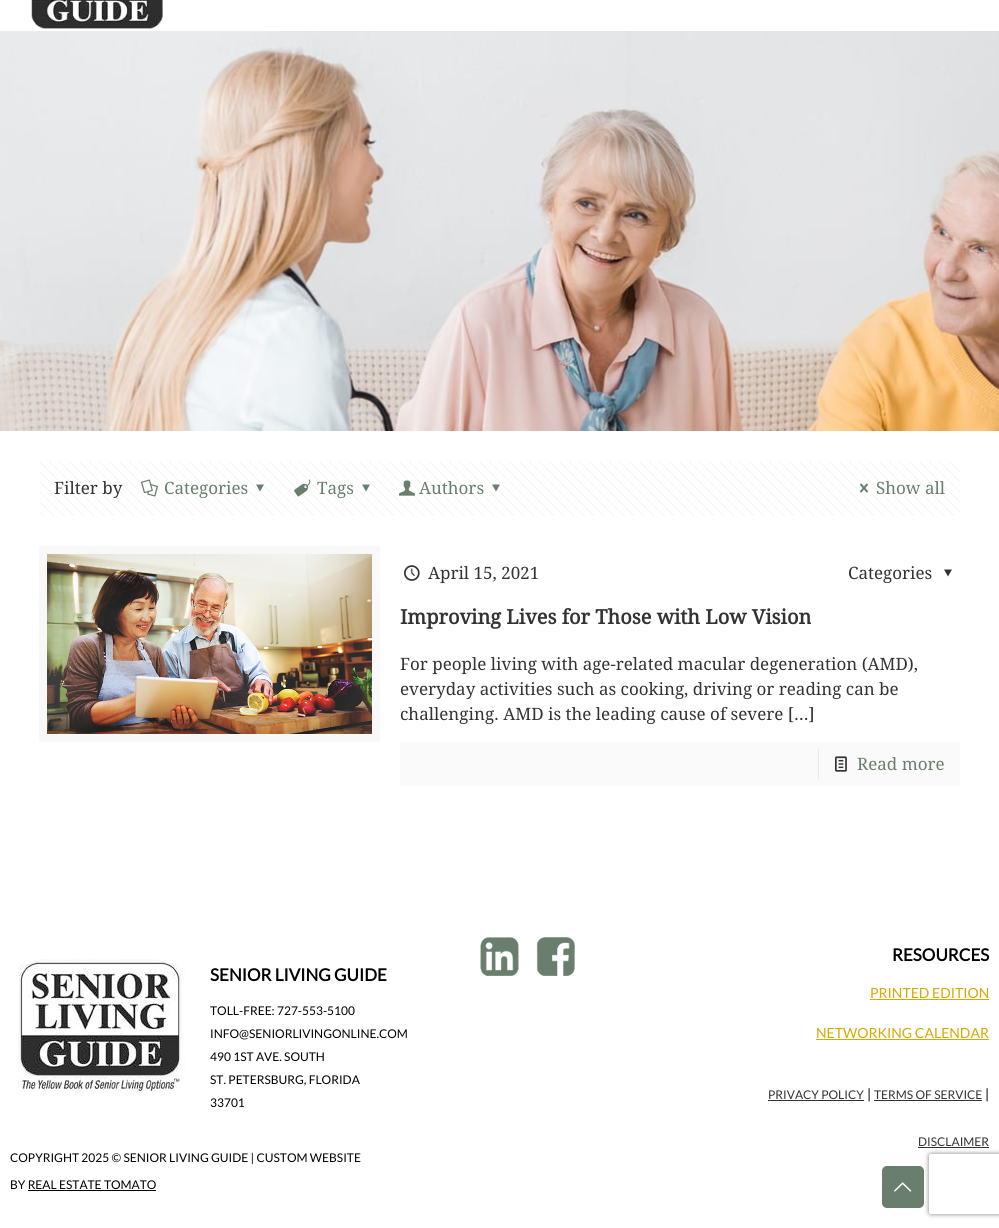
#include <cairo.h>
#include <math.h>
#include <stddef.h>


static void set_color(cairo_t *cr, unsigned color) {
    cairo_set_source_rgb(cr, (color >> 16) / 255.0, (color >> 8 & 255) / 255.0, (color & 255) / 255.0);
}

static void draw_text(cairo_t *cr, double x, double y, const char *s, const char *family, double size, int italic, int bold, unsigned color) {
    cairo_select_font_face(cr, family, italic ? CAIRO_FONT_SLANT_ITALIC : CAIRO_FONT_SLANT_NORMAL,
        bold ? CAIRO_FONT_WEIGHT_BOLD : CAIRO_FONT_WEIGHT_NORMAL);
    cairo_set_font_size(cr, size);
    set_color(cr, color);
    cairo_move_to(cr, x, y);
    cairo_show_text(cr, s);
}

static void fill_rect(cairo_t *cr, double x, double y, double w, double h, unsigned color) {
    set_color(cr, color);
    cairo_rectangle(cr, x, y, w, h);
    cairo_fill(cr);
}

static void rounded_rect(cairo_t *cr, double x, double y, double w, double h, double r) {
    cairo_new_sub_path(cr);
    cairo_arc(cr, x + w - r, y + h - r, r, 0, M_PI / 2);
    cairo_arc(cr, x + r, y + h - r, r, M_PI / 2, M_PI);
    cairo_arc(cr, x + r, y + r, r, M_PI, 1.5 * M_PI);
    cairo_arc(cr, x + w - r, y + r, r, 1.5 * M_PI, 2 * M_PI);
    cairo_close_path(cr);
}

static void draw_shadow(cairo_t *cr, double x, double y, double w, double h, double r, double blur, double alpha) {
    cairo_push_group_with_content(cr, CAIRO_CONTENT_ALPHA);
    cairo_set_operator(cr, CAIRO_OPERATOR_SOURCE);
    for (int i = 15; i >= -15 && fmin(w, h) + blur * i / 3 > 0; i -= 2) {
        double e = blur * i / 6;
        cairo_set_source_rgba(cr, 0, 0, 0, alpha * erfc((i - 1) / 8.5) / 2);
        rounded_rect(cr, x - e, y - e, w + 2 * e, h + 2 * e, fmax(0, fmin(r + e + blur * .6, fmin(w, h) / 2 + e)));
        cairo_fill(cr);
    }
    cairo_pattern_t *soft = cairo_pop_group(cr);
    cairo_mask(cr, soft);
    cairo_pattern_destroy(soft);
}

static void draw_image(cairo_t *cr, const char *path, double x, double y, double w, double h) {
    cairo_surface_t *image = cairo_image_surface_create_from_png(path);
    cairo_save(cr);
    cairo_set_source_surface(cr, image, x, y);
    cairo_rectangle(cr, x, y, w, h);
    cairo_fill(cr);
    cairo_restore(cr);
    cairo_surface_destroy(image);
}

int main(void) {
    cairo_surface_t *surface = cairo_image_surface_create(CAIRO_FORMAT_RGB24, 999, 1228);
    cairo_t *cr = cairo_create(surface);
    cairo_font_options_t *options = cairo_font_options_create();
    cairo_font_options_set_hint_metrics(options, CAIRO_HINT_METRICS_OFF);
    cairo_font_options_set_hint_style(options, CAIRO_HINT_STYLE_NONE);
    cairo_set_font_options(cr, options);
    cairo_set_miter_limit(cr, 4);
    set_color(cr, 0xFFFFFF);
    cairo_paint(cr);
    draw_image(cr, "assets/img1.png", 31, 0, 132, 29);
    draw_image(cr, "assets/img2.png", 0, 31, 999, 400);
    draw_image(cr, "assets/img3.png", 39, 461, 921, 55);
    draw_text(cr, 54, 494, "Filter by", "Droid Serif", 17, 0, 0, 0x333333);
    draw_image(cr, "assets/img4.png", 141, 479, 17, 18);
    draw_text(cr, 164, 494, "Categories", "Droid Serif", 17, 0, 0, 0x697E6D);
    cairo_new_path(cr);
    cairo_move_to(cr, 264, 484.5);
    cairo_line_to(cr, 260, 491.5);
    cairo_line_to(cr, 256, 484.5);
    cairo_close_path(cr);
    cairo_fill(cr);
    draw_image(cr, "assets/img5.png", 294, 479, 17, 18);
    draw_text(cr, 317, 494, "Tags", "Droid Serif", 17, 0, 0, 0x697E6D);
    cairo_new_path(cr);
    cairo_move_to(cr, 370, 484.5);
    cairo_line_to(cr, 366, 491.5);
    cairo_line_to(cr, 362, 484.5);
    cairo_close_path(cr);
    cairo_fill(cr);
    draw_image(cr, "assets/img6.png", 399, 480, 16, 16);
    draw_text(cr, 419, 494, "Authors", "Droid Serif", 17, 0, 0, 0x697E6D);
    cairo_new_path(cr);
    cairo_move_to(cr, 500, 484.5);
    cairo_line_to(cr, 496, 491.5);
    cairo_line_to(cr, 492, 484.5);
    cairo_close_path(cr);
    cairo_fill(cr);
    draw_image(cr, "assets/img7.png", 860, 483, 8, 10);
    draw_text(cr, 876, 494, "Show all", "Droid Serif", 17, 0, 0, 0x697E6D);
    cairo_rectangle(cr, 43, 550, 333, 188);
    set_color(cr, 0xF8F8F8);
    cairo_set_line_width(cr, 8);
    cairo_stroke(cr);
    draw_image(cr, "assets/img8.png", 47, 554, 325, 180);
    draw_image(cr, "assets/img9.png", 404, 565, 16, 16);
    draw_text(cr, 428, 579, "April 15, 2021", "Droid Serif", 17, 0, 0, 0x333333);
    draw_text(cr, 848, 579, "Categories", "Droid Serif", 17, 0, 0, 0x333333);
    cairo_new_path(cr);
    cairo_move_to(cr, 952, 569.5);
    cairo_line_to(cr, 948, 576.5);
    cairo_line_to(cr, 944, 569.5);
    cairo_close_path(cr);
    cairo_fill(cr);
    draw_text(cr, 400, 624, "Improving Lives for Those with Low Vision", "Droid Serif", 20, 0, 1, 0x333333);
    draw_text(cr, 400, 670, "For people living with age-related macular degeneration (AMD),", "Droid Serif", 17, 0, 0, 0x333333);
    draw_text(cr, 400, 695, "everyday activities such as cooking, driving or reading can be", "Droid Serif", 17, 0, 0, 0x333333);
    draw_text(cr, 400, 720, "challenging. AMD is the leading cause of severe […]", "Droid Serif", 17, 0, 0, 0x333333);
    fill_rect(cr, 400, 742, 560, 44, 0xFAFAFA);
    fill_rect(cr, 818, 749, 1, 30, 0xE6E6E6);
    draw_image(cr, "assets/img10.png", 835, 756, 12, 16);
    draw_text(cr, 857, 770, "Read more", "Droid Serif", 17, 0, 0, 0x697E6D);
    draw_image(cr, "assets/img11.png", 18, 959, 168, 132);
    draw_text(cr, 210, 981, "SENIOR LIVING GUIDE", "Lato", 17, 0, 1, 0x000000);
    draw_text(cr, 210, 1015, "TOLL-FREE: 727-553-5100", "Lato", 12, 0, 0, 0x000000);
    draw_text(cr, 210, 1038, "INFO@SENIORLIVINGONLINE.COM", "Lato", 12, 0, 0, 0x000000);
    draw_text(cr, 210, 1061, "490 1ST AVE. SOUTH", "Lato", 12, 0, 0, 0x000000);
    draw_text(cr, 210, 1084, "ST. PETERSBURG, FLORIDA", "Lato", 12, 0, 0, 0x000000);
    draw_text(cr, 210, 1107, "33701", "Lato", 12, 0, 0, 0x000000);
    draw_text(cr, 10, 1162, "COPYRIGHT 2025 © SENIOR LIVING GUIDE | CUSTOM WEBSITE", "Lato", 12, 0, 0, 0x000000);
    draw_text(cr, 10, 1189, "BY REAL ESTATE TOMATO", "Lato", 12, 0, 0, 0x000000);
    fill_rect(cr, 28, 1190, 128, 1, 0x000000);
    draw_image(cr, "assets/img12.png", 480, 937, 39, 39);
    draw_image(cr, "assets/img13.png", 536, 937, 39, 39);
    draw_text(cr, 892, 961, "RESOURCES", "Lato", 17, 0, 1, 0x000000);
    draw_text(cr, 870, 998, "PRINTED EDITION", "Lato", 14, 0, 0, 0xD7A804);
    fill_rect(cr, 870, 999, 119, 1, 0xD7A804);
    draw_text(cr, 816, 1038, "NETWORKING CALENDAR", "Lato", 14, 0, 0, 0xD7A804);
    fill_rect(cr, 816, 1039, 173, 1, 0xD7A804);
    draw_text(cr, 768, 1099, "PRIVACY POLICY", "Lato", 12, 0, 0, 0x333333);
    fill_rect(cr, 768, 1100, 96, 1, 0x333333);
    draw_text(cr, 867, 1099, "|", "Lato", 14, 0, 0, 0x000000);
    draw_text(cr, 874, 1099, "TERMS OF SERVICE", "Lato", 12, 0, 0, 0x333333);
    fill_rect(cr, 874, 1100, 108, 1, 0x333333);
    draw_text(cr, 985, 1099, "|", "Lato", 14, 0, 0, 0x000000);
    draw_text(cr, 918, 1146, "DISCLAIMER", "Lato", 12, 0, 0, 0x333333);
    fill_rect(cr, 918, 1147, 71, 1, 0x333333);
    cairo_save(cr);
    cairo_set_fill_rule(cr, CAIRO_FILL_RULE_EVEN_ODD);
    cairo_new_path(cr);
    cairo_move_to(cr, 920, 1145);
    cairo_line_to(cr, 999, 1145);
    cairo_line_to(cr, 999, 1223);
    cairo_line_to(cr, 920, 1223);
    cairo_close_path(cr);
    cairo_move_to(cr, 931, 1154);
    cairo_line_to(cr, 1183, 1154);
    cairo_curve_to(cr, 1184, 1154, 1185, 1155, 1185, 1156);
    cairo_line_to(cr, 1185, 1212);
    cairo_curve_to(cr, 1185, 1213, 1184, 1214, 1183, 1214);
    cairo_line_to(cr, 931, 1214);
    cairo_curve_to(cr, 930, 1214, 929, 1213, 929, 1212);
    cairo_line_to(cr, 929, 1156);
    cairo_curve_to(cr, 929, 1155, 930, 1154, 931, 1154);
    cairo_close_path(cr);
    cairo_clip(cr);
    set_color(cr, 0x808080);
    draw_shadow(cr, 929, 1154, 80, 60, 2, 2.5, 1);
    cairo_restore(cr);
    set_color(cr, 0x697E6D);
    rounded_rect(cr, 882, 1166, 42, 42, 5);
    cairo_fill(cr);
    draw_image(cr, "assets/img14.png", 894, 1182, 18, 10);
    cairo_surface_write_to_png(surface, "output.png");
    cairo_font_options_destroy(options);
    cairo_destroy(cr);
    cairo_surface_destroy(surface);
    return 0;
}
